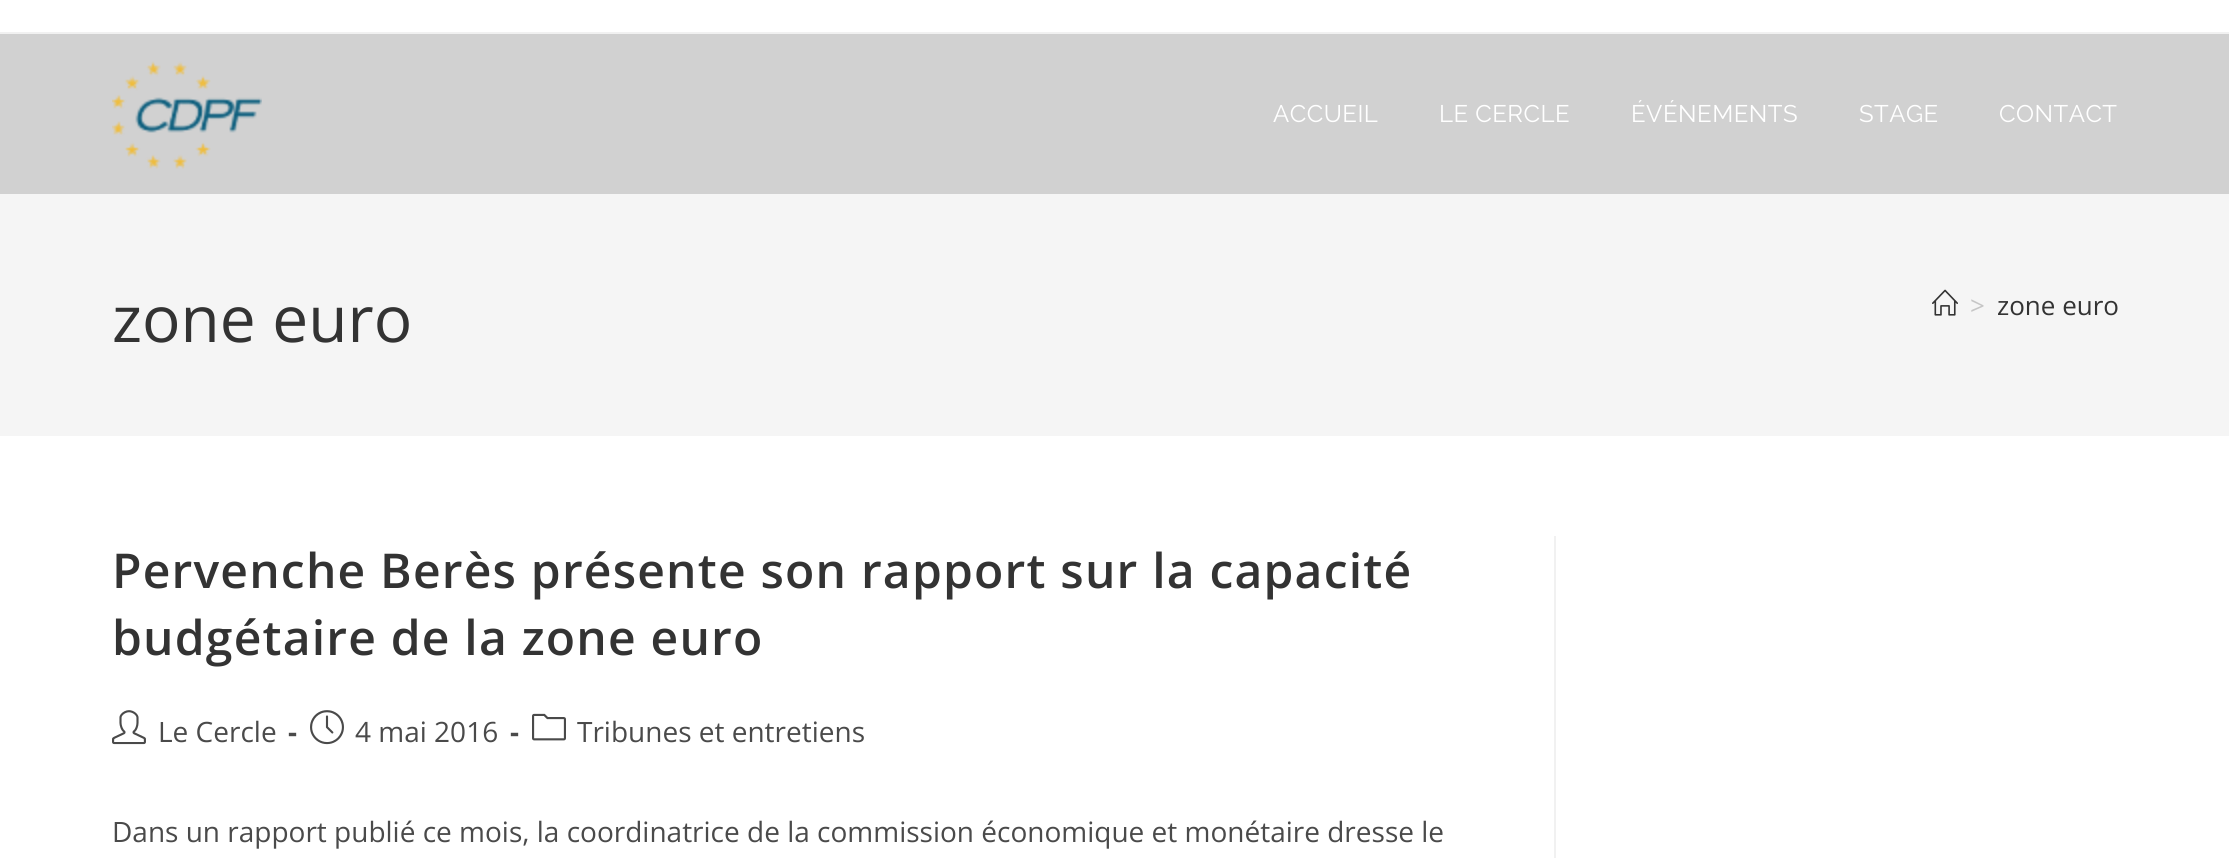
#include <cairo.h>
#include <math.h>
#include <stddef.h>


static void set_color(cairo_t *cr, unsigned color) {
    cairo_set_source_rgb(cr, (color >> 16) / 255.0, (color >> 8 & 255) / 255.0, (color & 255) / 255.0);
}

static void draw_text(cairo_t *cr, double x, double y, const char *s, const char *family, double size, int italic, int bold, unsigned color) {
    cairo_select_font_face(cr, family, italic ? CAIRO_FONT_SLANT_ITALIC : CAIRO_FONT_SLANT_NORMAL,
        bold ? CAIRO_FONT_WEIGHT_BOLD : CAIRO_FONT_WEIGHT_NORMAL);
    cairo_set_font_size(cr, size);
    set_color(cr, color);
    cairo_move_to(cr, x, y);
    cairo_show_text(cr, s);
}

static void draw_spaced(cairo_t *cr, double x, double y, const char *s, double letter, double word) {
    cairo_move_to(cr, x, y);
    while (*s) {
        char ch[5] = {0};
        int n = 0;
        do ch[n++] = *s++; while ((*s & 0xC0) == 0x80);
        cairo_show_text(cr, ch);
        cairo_rel_move_to(cr, letter + word * (*ch == ' '), 0);
    }
}

static void fill_rect(cairo_t *cr, double x, double y, double w, double h, unsigned color) {
    set_color(cr, color);
    cairo_rectangle(cr, x, y, w, h);
    cairo_fill(cr);
}

static void draw_image(cairo_t *cr, const char *path, double x, double y, double w, double h) {
    cairo_surface_t *image = cairo_image_surface_create_from_png(path);
    cairo_save(cr);
    cairo_set_source_surface(cr, image, x, y);
    cairo_rectangle(cr, x, y, w, h);
    cairo_fill(cr);
    cairo_restore(cr);
    cairo_surface_destroy(image);
}

int main(void) {
    cairo_surface_t *surface = cairo_image_surface_create(CAIRO_FORMAT_RGB24, 2229, 858);
    cairo_t *cr = cairo_create(surface);
    cairo_font_options_t *options = cairo_font_options_create();
    cairo_font_options_set_hint_metrics(options, CAIRO_HINT_METRICS_OFF);
    cairo_font_options_set_hint_style(options, CAIRO_HINT_STYLE_NONE);
    cairo_set_font_options(cr, options);
    cairo_set_miter_limit(cr, 4);
    set_color(cr, 0xFFFFFF);
    cairo_paint(cr);
    fill_rect(cr, 0, 32, 2229, 2, 0xF1F1F1);
    fill_rect(cr, 0, 34, 2229, 160, 0xD1D1D1);
    draw_image(cr, "assets/img1.png", 112, 61, 150, 108);
    cairo_select_font_face(cr, "Raleway", CAIRO_FONT_SLANT_NORMAL, CAIRO_FONT_WEIGHT_NORMAL);
    cairo_set_font_size(cr, 24);
    set_color(cr, 0xFFFFFF);
    draw_spaced(cr, 1273, 122, "ACCUEIL", 0.5, 0);
    draw_spaced(cr, 1439, 122, "LE CERCLE", 0.5, 0);
    draw_spaced(cr, 1631, 122, "ÉVÉNEMENTS", 0.5, 0);
    draw_spaced(cr, 1859, 122, "STAGE", 0.5, 0);
    draw_spaced(cr, 1999, 122, "CONTACT", 0.5, 0);
    fill_rect(cr, 0, 194, 2229, 242, 0xF5F5F5);
    draw_text(cr, 112, 342, "zone euro", "Open Sans", 64, 0, 0, 0x333333);
    draw_image(cr, "assets/img2.png", 1932, 289, 26, 27);
    draw_text(cr, 1970, 315, ">", "Open Sans", 26, 0, 0, 0xC6C6C6);
    draw_text(cr, 1997, 315, "zone euro", "Open Sans", 26, 0, 0, 0x333333);
    fill_rect(cr, 1554, 536, 2, 322, 0xF1F1F1);
    cairo_select_font_face(cr, "Open Sans SemiBold", CAIRO_FONT_SLANT_NORMAL, CAIRO_FONT_WEIGHT_NORMAL);
    cairo_set_font_size(cr, 48);
    set_color(cr, 0x333333);
    draw_spaced(cr, 112, 588, "Pervenche Berès présente son rapport sur la capacité", 1.2, 0);
    draw_spaced(cr, 112, 655, "budgétaire de la zone euro", 1.2, 0);
    draw_image(cr, "assets/img3.png", 112, 710, 34, 35);
    draw_text(cr, 158, 742, "Le Cercle", "Open Sans", 28, 0, 0, 0x4A4A4A);
    draw_text(cr, 288, 742, "-", "Open Sans", 28, 0, 1, 0x4A4A4A);
    draw_image(cr, "assets/img4.png", 310, 710, 34, 35);
    draw_text(cr, 355, 742, "4 mai 2016", "Open Sans", 28, 0, 0, 0x4A4A4A);
    draw_text(cr, 510, 742, "-", "Open Sans", 28, 0, 1, 0x4A4A4A);
    draw_image(cr, "assets/img5.png", 532, 713, 34, 28);
    draw_text(cr, 577, 742, "Tribunes et entretiens", "Open Sans", 28, 0, 0, 0x4A4A4A);
    draw_text(cr, 112, 842, "Dans un rapport publié ce mois, la coordinatrice de la commission économique et monétaire dresse le", "Open Sans", 28, 0, 0, 0x4A4A4A);
    cairo_surface_write_to_png(surface, "output.png");
    cairo_font_options_destroy(options);
    cairo_destroy(cr);
    cairo_surface_destroy(surface);
    return 0;
}
